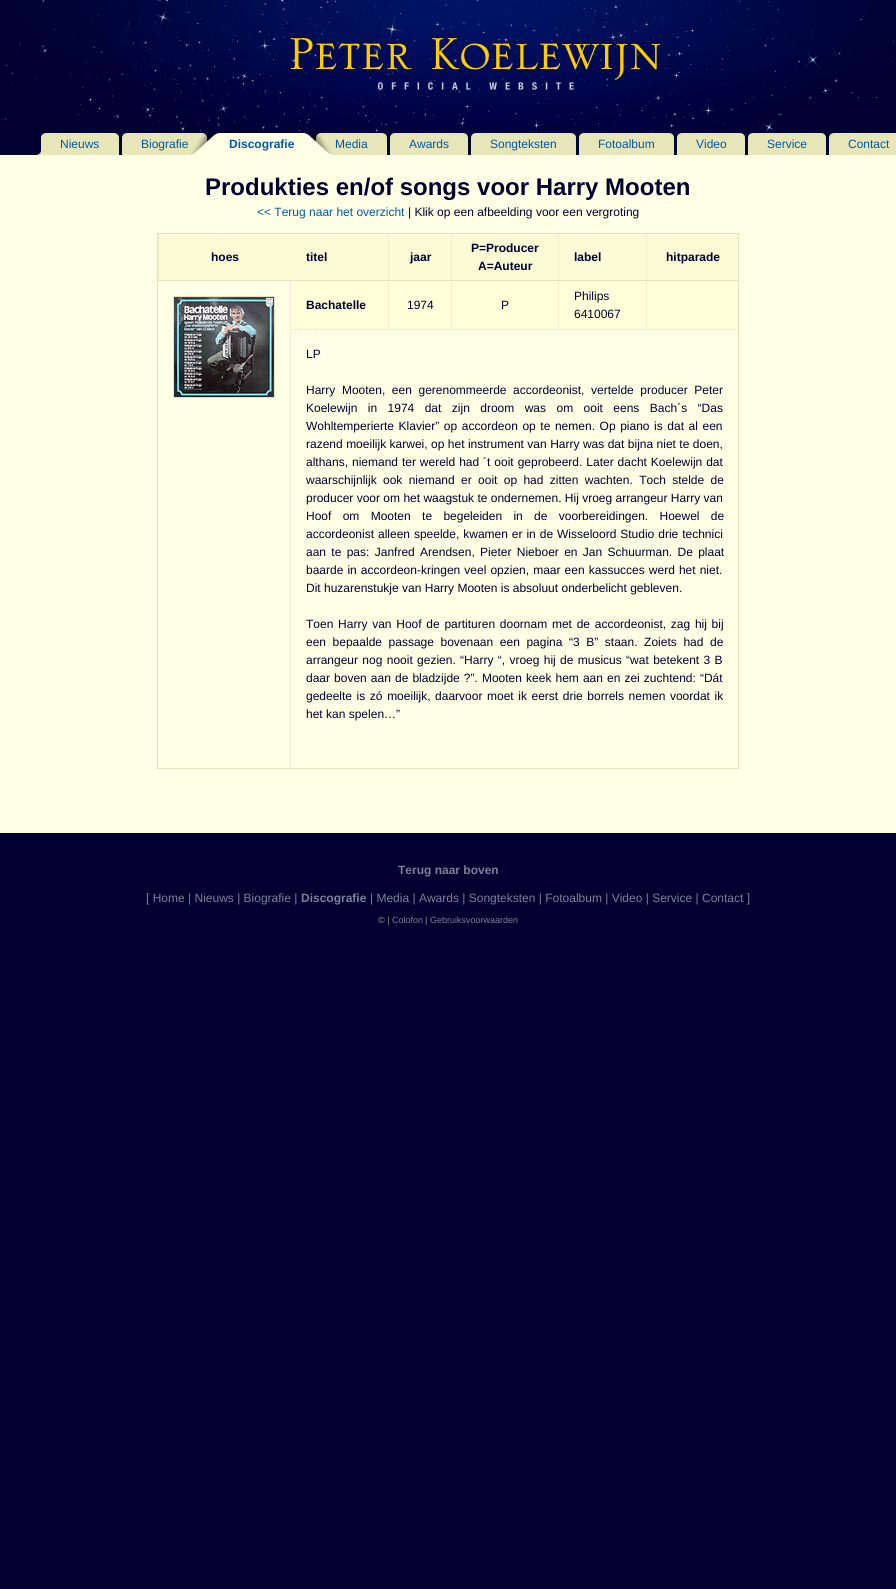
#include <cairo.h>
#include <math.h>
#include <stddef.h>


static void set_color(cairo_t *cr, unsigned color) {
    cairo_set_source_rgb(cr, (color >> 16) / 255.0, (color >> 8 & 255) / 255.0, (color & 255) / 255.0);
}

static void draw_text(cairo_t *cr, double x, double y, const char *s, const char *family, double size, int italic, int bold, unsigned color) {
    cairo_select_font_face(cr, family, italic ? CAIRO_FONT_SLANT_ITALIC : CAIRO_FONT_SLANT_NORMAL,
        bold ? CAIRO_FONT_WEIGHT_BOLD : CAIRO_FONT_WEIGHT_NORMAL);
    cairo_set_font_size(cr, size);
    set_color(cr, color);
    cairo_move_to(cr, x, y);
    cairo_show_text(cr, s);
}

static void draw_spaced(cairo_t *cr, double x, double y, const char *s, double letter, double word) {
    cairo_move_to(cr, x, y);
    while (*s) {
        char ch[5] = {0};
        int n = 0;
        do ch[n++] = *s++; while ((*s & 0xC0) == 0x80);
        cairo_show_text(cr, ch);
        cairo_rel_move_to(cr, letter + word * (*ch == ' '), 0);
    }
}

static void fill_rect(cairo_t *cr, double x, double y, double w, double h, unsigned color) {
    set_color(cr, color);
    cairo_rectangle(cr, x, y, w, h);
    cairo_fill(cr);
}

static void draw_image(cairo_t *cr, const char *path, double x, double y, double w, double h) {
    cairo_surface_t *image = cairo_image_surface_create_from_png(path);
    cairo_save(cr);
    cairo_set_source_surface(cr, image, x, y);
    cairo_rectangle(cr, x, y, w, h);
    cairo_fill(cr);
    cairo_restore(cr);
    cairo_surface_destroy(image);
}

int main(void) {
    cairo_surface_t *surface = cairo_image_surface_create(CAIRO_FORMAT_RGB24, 896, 1589);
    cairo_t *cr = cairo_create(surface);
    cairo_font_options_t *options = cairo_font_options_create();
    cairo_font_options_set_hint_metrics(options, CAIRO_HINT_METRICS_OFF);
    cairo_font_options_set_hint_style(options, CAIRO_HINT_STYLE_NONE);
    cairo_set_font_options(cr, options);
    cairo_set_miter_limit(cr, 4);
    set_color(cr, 0x000030);
    cairo_paint(cr);
    draw_image(cr, "assets/img1.png", 2, 0, 894, 133);
    fill_rect(cr, 46, 133, 850, 22, 0xE6E6B8);
    draw_image(cr, "assets/img2.png", 19, 133, 27, 22);
    draw_text(cr, 60, 148, "Nieuws", "Liberation Sans", 12, 0, 0, 0x0057AF);
    draw_image(cr, "assets/img3.png", 114, 133, 13, 22);
    draw_text(cr, 141, 148, "Biografie", "Liberation Sans", 12, 0, 0, 0x0057AF);
    draw_image(cr, "assets/img4.png", 190, 133, 39, 22);
    fill_rect(cr, 229, 133, 65, 22, 0xFFFFE5);
    draw_text(cr, 229, 148, "Discografie", "Liberation Sans", 12, 0, 1, 0x0057AF);
    draw_image(cr, "assets/img5.png", 294, 133, 39, 22);
    draw_text(cr, 335, 148, "Media", "Liberation Sans", 12, 0, 0, 0x0057AF);
    draw_image(cr, "assets/img6.png", 368, 133, 27, 22);
    draw_text(cr, 409, 148, "Awards", "Liberation Sans", 12, 0, 0, 0x0057AF);
    draw_image(cr, "assets/img3.png", 463, 133, 13, 22);
    draw_text(cr, 490, 148, "Songteksten", "Liberation Sans", 12, 0, 0, 0x0057AF);
    draw_image(cr, "assets/img3.png", 571, 133, 13, 22);
    draw_text(cr, 598, 148, "Fotoalbum", "Liberation Sans", 12, 0, 0, 0x0057AF);
    draw_image(cr, "assets/img3.png", 669, 133, 13, 22);
    draw_text(cr, 696, 148, "Video", "Liberation Sans", 12, 0, 0, 0x0057AF);
    draw_image(cr, "assets/img3.png", 740, 133, 13, 22);
    draw_text(cr, 767, 148, "Service", "Liberation Sans", 12, 0, 0, 0x0057AF);
    draw_image(cr, "assets/img3.png", 821, 133, 13, 22);
    draw_text(cr, 848, 148, "Contact", "Liberation Sans", 12, 0, 0, 0x0057AF);
    fill_rect(cr, 0, 155, 896, 678, 0xFFFFE5);
    draw_text(cr, 205, 195, "Produkties en/of songs voor Harry Mooten", "Liberation Sans", 24, 0, 1, 0x000030);
    draw_text(cr, 257, 216, "<< Terug naar het overzicht", "Liberation Sans", 12, 0, 0, 0x0057AF);
    draw_text(cr, 408, 216, "| Klik op een afbeelding voor een vergroting", "Liberation Sans", 12, 0, 0, 0x000030);
    fill_rect(cr, 157, 233, 582, 1, 0xE3E3C1);
    fill_rect(cr, 738, 233, 1, 536, 0xE3E3C1);
    fill_rect(cr, 157, 233, 1, 536, 0xE3E3C1);
    fill_rect(cr, 158, 234, 580, 46, 0xFAFAD4);
    fill_rect(cr, 158, 280, 580, 1, 0xE3E3C1);
    cairo_new_path(cr);
    cairo_move_to(cr, 158.5, 234);
    cairo_line_to(cr, 158.5, 281);
    cairo_set_line_width(cr, 1);
    cairo_set_dash(cr, (double[]){1, 1}, 2, 0);
    cairo_stroke(cr);
    draw_text(cr, 211, 261, "hoes", "Liberation Sans", 12, 0, 1, 0x000030);
    draw_text(cr, 306, 261, "titel", "Liberation Sans", 12, 0, 1, 0x000030);
    cairo_new_path(cr);
    cairo_move_to(cr, 388.5, 234);
    cairo_line_to(cr, 388.5, 281);
    set_color(cr, 0xE3E3C1);
    cairo_stroke(cr);
    draw_text(cr, 410, 261, "jaar", "Liberation Sans", 12, 0, 1, 0x000030);
    cairo_new_path(cr);
    cairo_move_to(cr, 451.5, 234);
    cairo_line_to(cr, 451.5, 281);
    set_color(cr, 0xE3E3C1);
    cairo_stroke(cr);
    draw_text(cr, 471, 252, "P=Producer", "Liberation Sans", 12, 0, 1, 0x000030);
    draw_text(cr, 478, 270, "A=Auteur", "Liberation Sans", 12, 0, 1, 0x000030);
    cairo_new_path(cr);
    cairo_move_to(cr, 558.5, 234);
    cairo_line_to(cr, 558.5, 281);
    set_color(cr, 0xE3E3C1);
    cairo_stroke(cr);
    draw_text(cr, 574, 261, "label", "Liberation Sans", 12, 0, 1, 0x000030);
    cairo_new_path(cr);
    cairo_move_to(cr, 646.5, 234);
    cairo_line_to(cr, 646.5, 281);
    set_color(cr, 0xE3E3C1);
    cairo_stroke(cr);
    draw_text(cr, 666, 261, "hitparade", "Liberation Sans", 12, 0, 1, 0x000030);
    cairo_new_path(cr);
    cairo_move_to(cr, 290.5, 281);
    cairo_line_to(cr, 290.5, 769);
    set_color(cr, 0xE3E3C1);
    cairo_stroke(cr);
    fill_rect(cr, 158, 768, 580, 1, 0xE3E3C1);
    cairo_rectangle(cr, 173.5, 296.5, 101, 101);
    cairo_set_dash(cr, NULL, 0, 0);
    cairo_stroke(cr);
    draw_image(cr, "assets/img7.png", 174, 297, 100, 100);
    fill_rect(cr, 291, 281, 447, 48, 0xFFFFD9);
    draw_text(cr, 306, 309, "Bachatelle", "Liberation Sans", 12, 0, 1, 0x000030);
    cairo_new_path(cr);
    cairo_move_to(cr, 388.5, 281);
    cairo_line_to(cr, 388.5, 329);
    set_color(cr, 0xE3E3C1);
    cairo_set_dash(cr, (double[]){1, 1}, 2, 0);
    cairo_stroke(cr);
    draw_text(cr, 407, 309, "1974", "Liberation Sans", 12, 0, 0, 0x000030);
    cairo_new_path(cr);
    cairo_move_to(cr, 451.5, 281);
    cairo_line_to(cr, 451.5, 329);
    set_color(cr, 0xE3E3C1);
    cairo_stroke(cr);
    draw_text(cr, 501, 309, "P", "Liberation Sans", 12, 0, 0, 0x000030);
    cairo_new_path(cr);
    cairo_move_to(cr, 558.5, 281);
    cairo_line_to(cr, 558.5, 329);
    set_color(cr, 0xE3E3C1);
    cairo_stroke(cr);
    draw_text(cr, 574, 300, "Philips", "Liberation Sans", 12, 0, 0, 0x000030);
    draw_text(cr, 574, 318, "6410067", "Liberation Sans", 12, 0, 0, 0x000030);
    cairo_new_path(cr);
    cairo_move_to(cr, 646.5, 281);
    cairo_line_to(cr, 646.5, 329);
    set_color(cr, 0xE3E3C1);
    cairo_stroke(cr);
    cairo_new_path(cr);
    cairo_move_to(cr, 291, 329.5);
    cairo_line_to(cr, 738, 329.5);
    cairo_stroke(cr);
    draw_text(cr, 306, 358, "LP", "Liberation Sans", 12, 0, 0, 0x000030);
    draw_spaced(cr, 306, 394, "Harry Mooten, een gerenommeerde accordeonist, vertelde producer Peter", 0, 3.25);
    draw_spaced(cr, 306, 412, "Koelewijn in 1974 dat zijn droom was om ooit eens Bach´s “Das", 0, 7.1);
    draw_spaced(cr, 306, 430, "Wohltemperierte Klavier” op accordeon op te nemen. Op piano is dat al een", 0, 1.25);
    draw_spaced(cr, 306, 448, "razend moeilijk karwei, op het instrument van Harry was dat bijna niet te doen,", 0, 0.1);
    draw_spaced(cr, 306, 466, "althans, niemand ter wereld had ´t ooit geprobeerd. Later dacht Koelewijn dat", 0, 0.6);
    draw_spaced(cr, 306, 484, "waarschijnlijk ook niemand er ooit op had zitten wachten. Toch stelde de", 0, 3);
    draw_text(cr, 306, 502, "producer voor om het waagstuk te ondernemen. Hij vroeg arrangeur Harry van", "Liberation Sans", 12, 0, 0, 0x000030);
    draw_spaced(cr, 306, 520, "Hoof om Mooten te begeleiden in de voorbereidingen. Hoewel de", 0, 8);
    draw_spaced(cr, 306, 538, "accordeonist alleen speelde, kwamen er in de Wisseloord Studio drie technici", 0, 0.6);
    draw_spaced(cr, 306, 556, "aan te pas: Janfred Arendsen, Pieter Nieboer en Jan Schuurman. De plaat", 0, 2);
    draw_spaced(cr, 306, 574, "baarde in accordeon-kringen veel opzien, maar een kassucces werd het niet.", 0, 0.75);
    draw_text(cr, 306, 592, "Dit huzarenstukje van Harry Mooten is absoluut onderbelicht gebleven.", "Liberation Sans", 12, 0, 0, 0x000030);
    draw_spaced(cr, 306, 628, "Toen Harry van Hoof de partituren doornam met de accordeonist, zag hij bij", 0, 1.4);
    draw_spaced(cr, 306, 646, "een bepaalde passage bovenaan een pagina “3 B” staan. Zoiets had de", 0, 3.25);
    draw_spaced(cr, 306, 664, "arrangeur nog nooit gezien. “Harry “, vroeg hij de musicus “wat betekent 3 B", 0, 1);
    draw_spaced(cr, 306, 682, "daar boven aan de bladzijde ?”. Mooten keek hem aan en zei zuchtend: “Dát", 0, 0.75);
    draw_spaced(cr, 306, 700, "gedeelte is zó moeilijk, daarvoor moet ik eerst drie borrels nemen voordat ik", 0, 1.25);
    draw_text(cr, 306, 718, "het kan spelen…”", "Liberation Sans", 12, 0, 0, 0x000030);
    draw_text(cr, 398, 874, "Terug naar boven", "Liberation Sans", 12, 0, 1, 0x7A8299);
    draw_text(cr, 146, 902, "[ Home | Nieuws | Biografie |", "Liberation Sans", 12, 0, 0, 0x7A8299);
    draw_text(cr, 301, 902, "Discografie", "Liberation Sans", 12, 0, 1, 0x7A8299);
    draw_text(cr, 370, 902, "| Media | Awards | Songteksten | Fotoalbum | Video | Service | Contact ]", "Liberation Sans", 12, 0, 0, 0x7A8299);
    draw_text(cr, 378, 923, "© |", "Liberation Sans", 9, 0, 0, 0x999999);
    draw_text(cr, 392, 923, "Colofon", "Liberation Sans", 9, 0, 0, 0x7A8299);
    draw_text(cr, 425, 923, "|", "Liberation Sans", 9, 0, 0, 0x999999);
    draw_text(cr, 430, 923, "Gebruiksvoorwaarden", "Liberation Sans", 9, 0, 0, 0x7A8299);
    cairo_surface_write_to_png(surface, "output.png");
    cairo_font_options_destroy(options);
    cairo_destroy(cr);
    cairo_surface_destroy(surface);
    return 0;
}
